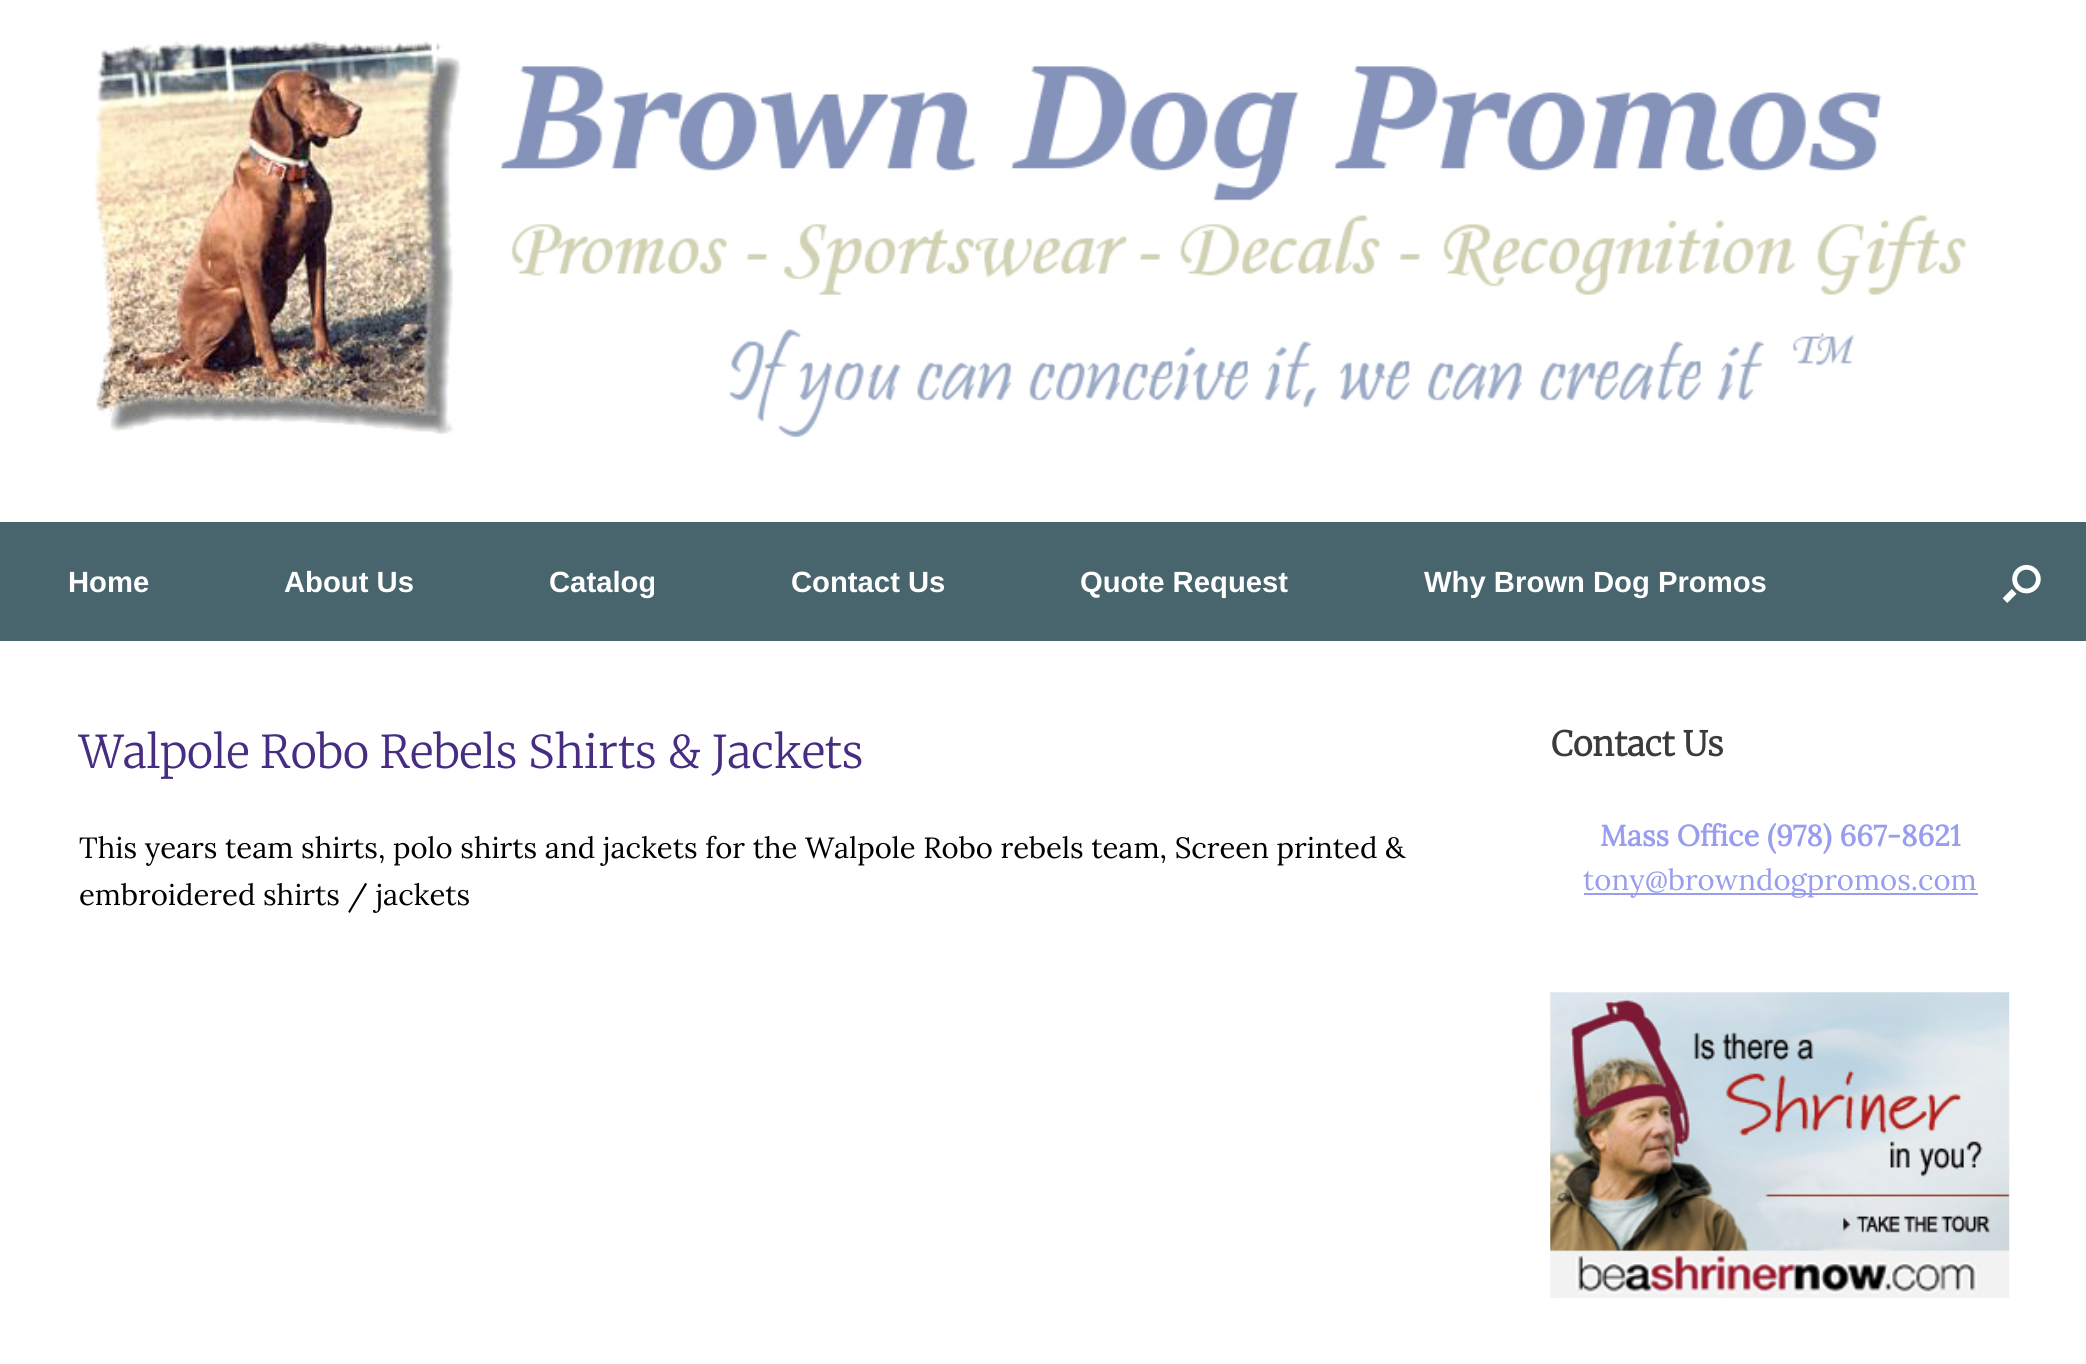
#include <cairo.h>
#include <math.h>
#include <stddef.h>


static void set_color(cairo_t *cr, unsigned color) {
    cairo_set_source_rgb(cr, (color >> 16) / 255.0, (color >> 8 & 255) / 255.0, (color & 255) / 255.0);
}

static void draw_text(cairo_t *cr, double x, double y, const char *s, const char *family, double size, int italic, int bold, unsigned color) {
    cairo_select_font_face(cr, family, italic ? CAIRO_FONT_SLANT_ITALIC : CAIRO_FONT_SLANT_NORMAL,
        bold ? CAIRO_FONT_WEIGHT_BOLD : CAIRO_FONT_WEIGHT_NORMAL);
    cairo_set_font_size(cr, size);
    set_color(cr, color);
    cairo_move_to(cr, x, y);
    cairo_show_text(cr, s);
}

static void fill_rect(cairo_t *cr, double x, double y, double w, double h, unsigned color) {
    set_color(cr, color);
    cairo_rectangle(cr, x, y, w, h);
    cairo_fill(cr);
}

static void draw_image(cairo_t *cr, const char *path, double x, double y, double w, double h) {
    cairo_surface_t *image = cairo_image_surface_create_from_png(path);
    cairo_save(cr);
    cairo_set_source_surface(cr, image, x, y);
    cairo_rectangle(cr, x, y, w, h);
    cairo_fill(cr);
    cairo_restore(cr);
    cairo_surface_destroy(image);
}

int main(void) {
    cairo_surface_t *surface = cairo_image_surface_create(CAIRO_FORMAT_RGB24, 2086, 1364);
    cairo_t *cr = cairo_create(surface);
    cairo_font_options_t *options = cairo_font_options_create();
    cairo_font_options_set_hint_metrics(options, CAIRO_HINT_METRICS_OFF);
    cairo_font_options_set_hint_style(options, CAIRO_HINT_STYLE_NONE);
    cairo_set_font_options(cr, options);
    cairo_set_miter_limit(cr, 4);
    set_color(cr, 0xFFFFFF);
    cairo_paint(cr);
    draw_image(cr, "assets/img1.png", 94, 41, 1872, 397);
    fill_rect(cr, 0, 522, 2086, 119, 0x48646D);
    draw_text(cr, 68, 592, "Home", "Liberation Sans", 29.25, 0, 1, 0xFFFFFF);
    draw_text(cr, 284, 592, "About Us", "Liberation Sans", 29.25, 0, 1, 0xFFFFFF);
    draw_text(cr, 549, 592, "Catalog", "Liberation Sans", 29.25, 0, 1, 0xFFFFFF);
    draw_text(cr, 791, 592, "Contact Us", "Liberation Sans", 29.25, 0, 1, 0xFFFFFF);
    draw_text(cr, 1080, 592, "Quote Request", "Liberation Sans", 29.25, 0, 1, 0xFFFFFF);
    draw_text(cr, 1424, 592, "Why Brown Dog Promos", "Liberation Sans", 29.25, 0, 1, 0xFFFFFF);
    draw_image(cr, "assets/img2.png", 2002, 564, 39, 39);
    draw_text(cr, 79, 768, "Walpole Robo Rebels Shirts & Jackets", "Merriweather Light", 45, 0, 0, 0x462D82);
    draw_text(cr, 79, 858, "This years team shirts, polo shirts and jackets for the Walpole Robo rebels team, Screen printed &", "Lora", 29.25, 0, 0, 0x000000);
    draw_text(cr, 79, 905, "embroidered shirts / jackets", "Lora", 29.25, 0, 0, 0x000000);
    draw_text(cr, 1551, 756, "Contact Us", "Merriweather", 33.75, 0, 1, 0x3B3B3B);
    draw_text(cr, 1600, 846, "Mass Office (978) 667-8621", "Lora", 29.25, 0, 1, 0x989DEF);
    fill_rect(cr, 1584, 893, 394, 2, 0x989DEF);
    draw_text(cr, 1583, 890, "tony@browndogpromos.com", "Lora", 29.25, 0, 0, 0x989DEF);
    draw_image(cr, "assets/img3.png", 1550, 992, 460, 306);
    cairo_surface_write_to_png(surface, "output.png");
    cairo_font_options_destroy(options);
    cairo_destroy(cr);
    cairo_surface_destroy(surface);
    return 0;
}
